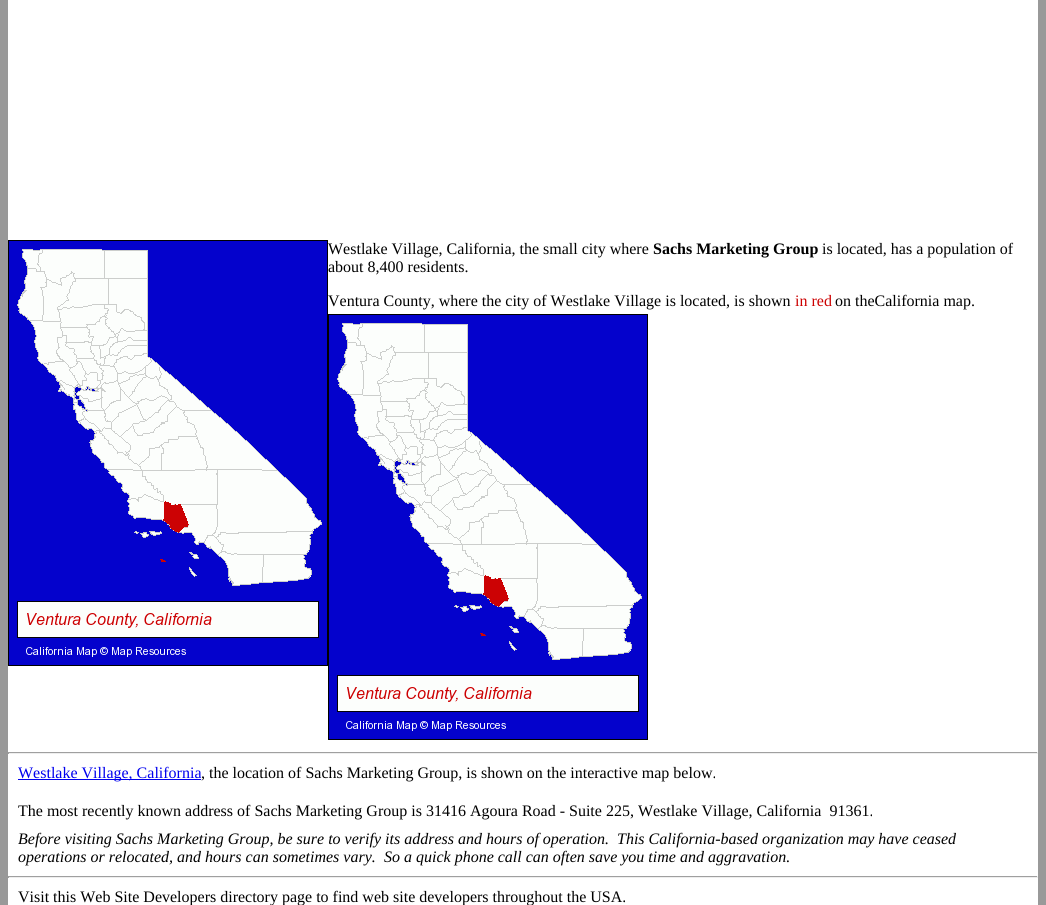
#include <cairo.h>
#include <math.h>
#include <stddef.h>


static void set_color(cairo_t *cr, unsigned color) {
    cairo_set_source_rgb(cr, (color >> 16) / 255.0, (color >> 8 & 255) / 255.0, (color & 255) / 255.0);
}

static void draw_text(cairo_t *cr, double x, double y, const char *s, const char *family, double size, int italic, int bold, unsigned color) {
    cairo_select_font_face(cr, family, italic ? CAIRO_FONT_SLANT_ITALIC : CAIRO_FONT_SLANT_NORMAL,
        bold ? CAIRO_FONT_WEIGHT_BOLD : CAIRO_FONT_WEIGHT_NORMAL);
    cairo_set_font_size(cr, size);
    set_color(cr, color);
    cairo_move_to(cr, x, y);
    cairo_show_text(cr, s);
}

static void fill_rect(cairo_t *cr, double x, double y, double w, double h, unsigned color) {
    set_color(cr, color);
    cairo_rectangle(cr, x, y, w, h);
    cairo_fill(cr);
}

static void draw_image(cairo_t *cr, const char *path, double x, double y, double w, double h) {
    cairo_surface_t *image = cairo_image_surface_create_from_png(path);
    cairo_save(cr);
    cairo_set_source_surface(cr, image, x, y);
    cairo_rectangle(cr, x, y, w, h);
    cairo_fill(cr);
    cairo_restore(cr);
    cairo_surface_destroy(image);
}

int main(void) {
    cairo_surface_t *surface = cairo_image_surface_create(CAIRO_FORMAT_RGB24, 1046, 905);
    cairo_t *cr = cairo_create(surface);
    cairo_font_options_t *options = cairo_font_options_create();
    cairo_font_options_set_hint_metrics(options, CAIRO_HINT_METRICS_OFF);
    cairo_font_options_set_hint_style(options, CAIRO_HINT_STYLE_NONE);
    cairo_set_font_options(cr, options);
    cairo_set_miter_limit(cr, 4);
    set_color(cr, 0x999999);
    cairo_paint(cr);
    fill_rect(cr, 8, 0, 1030, 905, 0xFFFFFF);
    cairo_rectangle(cr, 8.5, 240.5, 319, 425);
    set_color(cr, 0x000000);
    cairo_set_line_width(cr, 1);
    cairo_stroke(cr);
    draw_image(cr, "assets/img1.png", 9, 241, 318, 424);
    draw_text(cr, 328, 254, "Westlake Village, California, the small city where", "Liberation Serif", 16, 0, 0, 0x000000);
    draw_text(cr, 653, 254, "Sachs Marketing Group", "Liberation Serif", 16, 0, 1, 0x000000);
    draw_text(cr, 822, 254, "is located, has a population of", "Liberation Serif", 16, 0, 0, 0x000000);
    draw_text(cr, 328, 272, "about 8,400 residents.", "Liberation Serif", 16, 0, 0, 0x000000);
    draw_text(cr, 328, 306, "Ventura County, where the city of Westlake Village is located, is shown", "Liberation Serif", 16, 0, 0, 0x000000);
    draw_text(cr, 795, 306, "in red", "Liberation Serif", 16, 0, 0, 0xCC0000);
    draw_text(cr, 835, 306, "on theCalifornia map.", "Liberation Serif", 16, 0, 0, 0x000000);
    cairo_rectangle(cr, 328.5, 314.5, 319, 425);
    cairo_stroke(cr);
    draw_image(cr, "assets/img1.png", 329, 315, 318, 424);
    fill_rect(cr, 8, 752, 1030, 1, 0x9F9F9F);
    fill_rect(cr, 1037, 752, 1, 2, 0xEEEEEE);
    fill_rect(cr, 8, 753, 1030, 1, 0xEEEEEE);
    fill_rect(cr, 8, 752, 1, 2, 0x9F9F9F);
    fill_rect(cr, 18, 779, 183, 1, 0x0000EE);
    draw_text(cr, 18, 778, "Westlake Village, California", "Liberation Serif", 16, 0, 0, 0x0000EE);
    draw_text(cr, 201, 778, ", the location of Sachs Marketing Group, is shown on the interactive map below.", "Liberation Serif", 16, 0, 0, 0x000000);
    draw_text(cr, 18, 816, "The most recently known address of Sachs Marketing Group is 31416 Agoura Road - Suite 225, Westlake Village, California  91361.", "Liberation Serif", 16, 0, 0, 0x000000);
    draw_text(cr, 18, 844, "Before visiting Sachs Marketing Group, be sure to verify its address and hours of operation.", "Liberation Serif", 16, 1, 0, 0x000000);
    draw_text(cr, 617, 844, "This California-based organization may have ceased", "Liberation Serif", 16, 1, 0, 0x000000);
    draw_text(cr, 18, 862, "operations or relocated, and hours can sometimes vary.", "Liberation Serif", 16, 1, 0, 0x000000);
    draw_text(cr, 384, 862, "So a quick phone call can often save you time and aggravation.", "Liberation Serif", 16, 1, 0, 0x000000);
    fill_rect(cr, 8, 876, 1030, 1, 0x9F9F9F);
    fill_rect(cr, 1037, 876, 1, 2, 0xEEEEEE);
    fill_rect(cr, 8, 877, 1030, 1, 0xEEEEEE);
    fill_rect(cr, 8, 876, 1, 2, 0x9F9F9F);
    draw_text(cr, 18, 902, "Visit this Web Site Developers directory page to find web site developers throughout the USA.", "Liberation Serif", 16, 0, 0, 0x000000);
    cairo_surface_write_to_png(surface, "output.png");
    cairo_font_options_destroy(options);
    cairo_destroy(cr);
    cairo_surface_destroy(surface);
    return 0;
}
